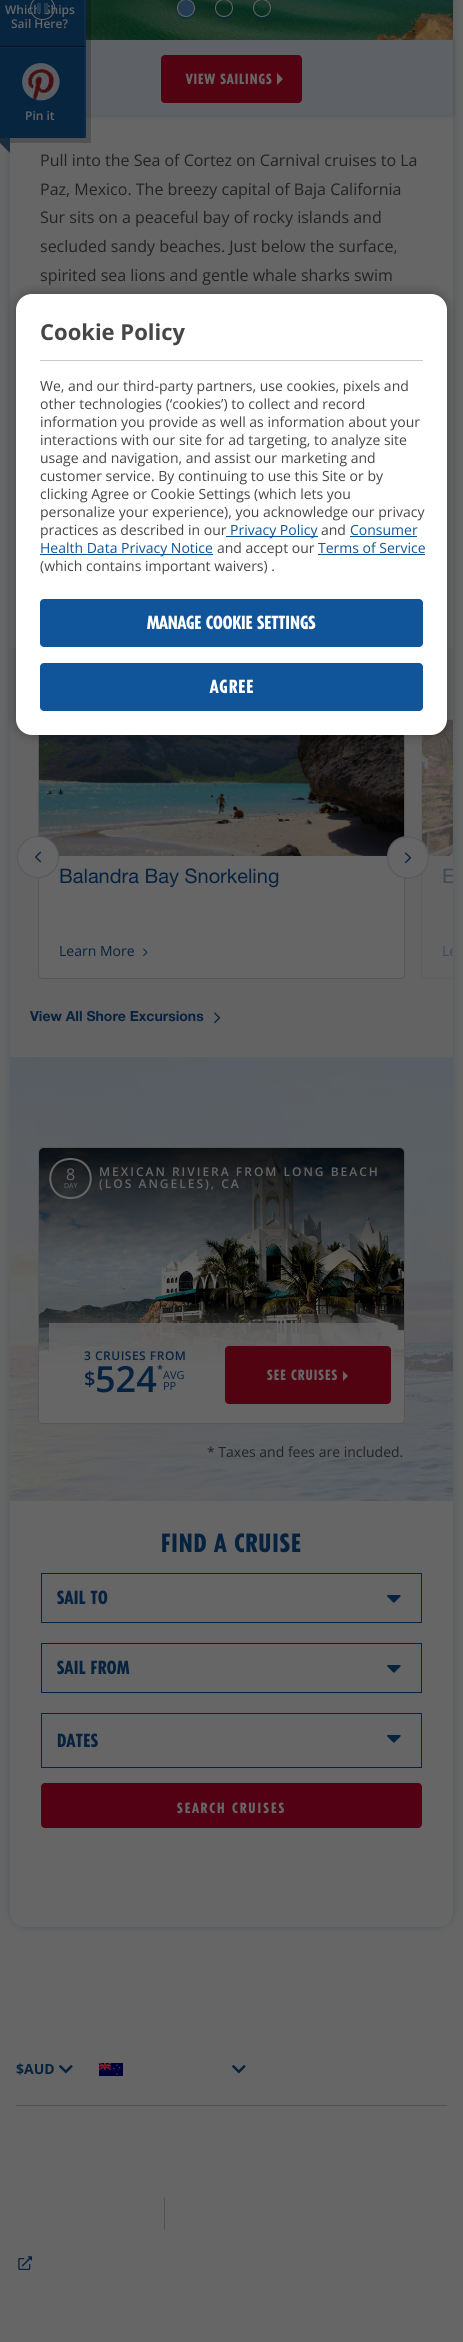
#include <cairo.h>
#include <math.h>
#include <stddef.h>


static void set_color(cairo_t *cr, unsigned color) {
    cairo_set_source_rgb(cr, (color >> 16) / 255.0, (color >> 8 & 255) / 255.0, (color & 255) / 255.0);
}

static void draw_text(cairo_t *cr, double x, double y, const char *s, const char *family, double size, int italic, int bold, unsigned color) {
    cairo_select_font_face(cr, family, italic ? CAIRO_FONT_SLANT_ITALIC : CAIRO_FONT_SLANT_NORMAL,
        bold ? CAIRO_FONT_WEIGHT_BOLD : CAIRO_FONT_WEIGHT_NORMAL);
    cairo_set_font_size(cr, size);
    set_color(cr, color);
    cairo_move_to(cr, x, y);
    cairo_show_text(cr, s);
}

static void draw_spaced(cairo_t *cr, double x, double y, const char *s, double letter, double word) {
    cairo_move_to(cr, x, y);
    while (*s) {
        char ch[5] = {0};
        int n = 0;
        do ch[n++] = *s++; while ((*s & 0xC0) == 0x80);
        cairo_show_text(cr, ch);
        cairo_rel_move_to(cr, letter + word * (*ch == ' '), 0);
    }
}

static void fill_rect(cairo_t *cr, double x, double y, double w, double h, unsigned color) {
    set_color(cr, color);
    cairo_rectangle(cr, x, y, w, h);
    cairo_fill(cr);
}

static void rounded_rect(cairo_t *cr, double x, double y, double w, double h, double r) {
    cairo_new_sub_path(cr);
    cairo_arc(cr, x + w - r, y + h - r, r, 0, M_PI / 2);
    cairo_arc(cr, x + r, y + h - r, r, M_PI / 2, M_PI);
    cairo_arc(cr, x + r, y + r, r, M_PI, 1.5 * M_PI);
    cairo_arc(cr, x + w - r, y + r, r, 1.5 * M_PI, 2 * M_PI);
    cairo_close_path(cr);
}

static void draw_shadow(cairo_t *cr, double x, double y, double w, double h, double r, double blur, double alpha) {
    cairo_push_group_with_content(cr, CAIRO_CONTENT_ALPHA);
    cairo_set_operator(cr, CAIRO_OPERATOR_SOURCE);
    for (int i = 15; i >= -15 && fmin(w, h) + blur * i / 3 > 0; i -= 2) {
        double e = blur * i / 6;
        cairo_set_source_rgba(cr, 0, 0, 0, alpha * erfc((i - 1) / 8.5) / 2);
        rounded_rect(cr, x - e, y - e, w + 2 * e, h + 2 * e, fmax(0, fmin(r + e + blur * .6, fmin(w, h) / 2 + e)));
        cairo_fill(cr);
    }
    cairo_pattern_t *soft = cairo_pop_group(cr);
    cairo_mask(cr, soft);
    cairo_pattern_destroy(soft);
}

static void draw_image(cairo_t *cr, const char *path, double x, double y, double w, double h) {
    cairo_surface_t *image = cairo_image_surface_create_from_png(path);
    cairo_save(cr);
    cairo_set_source_surface(cr, image, x, y);
    cairo_rectangle(cr, x, y, w, h);
    cairo_fill(cr);
    cairo_restore(cr);
    cairo_surface_destroy(image);
}

int main(void) {
    cairo_surface_t *surface = cairo_image_surface_create(CAIRO_FORMAT_RGB24, 463, 2342);
    cairo_t *cr = cairo_create(surface);
    cairo_font_options_t *options = cairo_font_options_create();
    cairo_font_options_set_hint_metrics(options, CAIRO_HINT_METRICS_OFF);
    cairo_font_options_set_hint_style(options, CAIRO_HINT_STYLE_NONE);
    cairo_set_font_options(cr, options);
    cairo_set_miter_limit(cr, 4);
    cairo_pattern_t *gradient;
    set_color(cr, 0x666666);
    cairo_paint(cr);
    set_color(cr, 0x133248);
    draw_shadow(cr, 10, -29, 443, 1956, 15, 4.5, 0.26);
    set_color(cr, 0x666666);
    cairo_new_path(cr);
    cairo_move_to(cr, 10, -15);
    cairo_line_to(cr, 453, -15);
    cairo_line_to(cr, 453, 1912);
    cairo_curve_to(cr, 453, 1920.5, 446.5, 1927, 438, 1927);
    cairo_line_to(cr, 25, 1927);
    cairo_curve_to(cr, 16.5, 1927, 10, 1920.5, 10, 1912);
    cairo_close_path(cr);
    cairo_fill(cr);
    set_color(cr, 0x000000);
    draw_shadow(cr, 10, 40, 443, 75, 0, 2.5, 0.2);
    draw_image(cr, "assets/img1.png", 86, 0, 367, 40);
    fill_rect(cr, 86, 40, 367, 75, 0x5E6165);
    cairo_set_source_rgba(cr, 0, 0, 0, 0.2);
    cairo_new_path(cr);
    cairo_move_to(cr, -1, 138);
    cairo_line_to(cr, -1, 143);
    cairo_line_to(cr, 91, 143);
    cairo_line_to(cr, 91, -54);
    cairo_line_to(cr, 86, -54);
    cairo_line_to(cr, 86, 138);
    cairo_close_path(cr);
    cairo_fill(cr);
    fill_rect(cr, 0, 0, 84, 138, 0x082540);
    rounded_rect(cr, 30.5, -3.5, 24, 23, 11.5);
    set_color(cr, 0x666666);
    cairo_set_line_width(cr, 1);
    cairo_stroke(cr);
    draw_text(cr, 5, 14, "Which Ships", "Open Sans SemiBold", 12, 0, 0, 0x666666);
    fill_rect(cr, 37, 3, 4, 10, 0x243B52);
    fill_rect(cr, 44, 3, 4, 10, 0x243B52);
    set_color(cr, 0x03213E);
    draw_shadow(cr, 177, 1, 18, 18, 9, 1, 0.5);
    set_color(cr, 0x243B52);
    cairo_arc(cr, 186, 8, 8.5, 0, 2 * M_PI);
    cairo_fill_preserve(cr);
    set_color(cr, 0x666666);
    cairo_stroke(cr);
    cairo_save(cr);
    cairo_set_fill_rule(cr, CAIRO_FILL_RULE_EVEN_ODD);
    cairo_new_path(cr);
    cairo_move_to(cr, 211, 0);
    cairo_line_to(cr, 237, 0);
    cairo_line_to(cr, 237, 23);
    cairo_line_to(cr, 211, 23);
    cairo_close_path(cr);
    cairo_move_to(cr, 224, -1);
    cairo_curve_to(cr, 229, -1, 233, 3, 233, 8);
    cairo_curve_to(cr, 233, 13, 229, 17, 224, 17);
    cairo_curve_to(cr, 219, 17, 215, 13, 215, 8);
    cairo_curve_to(cr, 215, 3, 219, -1, 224, -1);
    cairo_close_path(cr);
    cairo_clip(cr);
    set_color(cr, 0x03213E);
    draw_shadow(cr, 215, 1, 18, 18, 9, 1, 0.5);
    cairo_restore(cr);
    cairo_arc(cr, 224, 8, 8.5, 0, 2 * M_PI);
    cairo_stroke(cr);
    cairo_save(cr);
    cairo_set_fill_rule(cr, CAIRO_FILL_RULE_EVEN_ODD);
    cairo_new_path(cr);
    cairo_move_to(cr, 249, 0);
    cairo_line_to(cr, 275, 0);
    cairo_line_to(cr, 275, 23);
    cairo_line_to(cr, 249, 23);
    cairo_close_path(cr);
    cairo_move_to(cr, 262, -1);
    cairo_curve_to(cr, 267, -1, 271, 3, 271, 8);
    cairo_curve_to(cr, 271, 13, 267, 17, 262, 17);
    cairo_curve_to(cr, 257, 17, 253, 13, 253, 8);
    cairo_curve_to(cr, 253, 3, 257, -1, 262, -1);
    cairo_close_path(cr);
    cairo_clip(cr);
    set_color(cr, 0x03213E);
    draw_shadow(cr, 253, 1, 18, 18, 9, 1, 0.5);
    cairo_restore(cr);
    cairo_arc(cr, 262, 8, 8.5, 0, 2 * M_PI);
    cairo_stroke(cr);
    fill_rect(cr, 85, 0, 1, 138, 0x0D2A48);
    fill_rect(cr, 0, 46, 85, 1, 0x021326);
    fill_rect(cr, 84, 0, 1, 46, 0x0D2A48);
    draw_text(cr, 11, 28, "Sail Here?", "Open Sans SemiBold", 12, 0, 0, 0x666666);
    fill_rect(cr, 0, 47, 85, 1, 0x0D2A48);
    fill_rect(cr, 84, 48, 1, 90, 0x0D2A48);
    draw_image(cr, "assets/img2.png", 22, 63, 38, 38);
    draw_text(cr, 25, 120, "Pin it", "Open Sans SemiBold", 12, 0, 0, 0x666666);
    set_color(cr, 0x1A2D3D);
    cairo_new_path(cr);
    cairo_move_to(cr, -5, 138);
    cairo_line_to(cr, 10, 138);
    cairo_line_to(cr, 10, 153);
    cairo_close_path(cr);
    cairo_fill(cr);
    set_color(cr, 0x520312);
    rounded_rect(cr, 161, 55, 141, 48, 4);
    cairo_fill(cr);
    cairo_select_font_face(cr, "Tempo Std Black", CAIRO_FONT_SLANT_NORMAL, CAIRO_FONT_WEIGHT_NORMAL);
    cairo_set_font_size(cr, 14);
    set_color(cr, 0x666666);
    draw_spaced(cr, 186, 84, "VIEW SAILINGS", 1, 0);
    cairo_new_path(cr);
    cairo_move_to(cr, 277, 85);
    cairo_line_to(cr, 277, 73);
    cairo_line_to(cr, 283, 79);
    cairo_close_path(cr);
    cairo_fill(cr);
    draw_text(cr, 40, 166, "Pull into the Sea of Cortez on Carnival cruises to La", "Open Sans", 16, 0, 0, 0x222222);
    draw_text(cr, 40, 195, "Paz, Mexico. The breezy capital of Baja California", "Open Sans", 16, 0, 0, 0x222222);
    draw_text(cr, 40, 223, "Sur sits on a peaceful bay of rocky islands and", "Open Sans", 16, 0, 0, 0x222222);
    draw_text(cr, 40, 252, "secluded sandy beaches. Just below the surface,", "Open Sans", 16, 0, 0, 0x222222);
    draw_text(cr, 40, 281, "spirited sea lions and gentle whale sharks swim", "Open Sans", 16, 0, 0, 0x222222);
    fill_rect(cr, 10, 648, 443, 409, 0x636363);
    set_color(cr, 0x666666);
    rounded_rect(cr, 38.5, 719.5, 366, 259, 4.5);
    cairo_fill_preserve(cr);
    set_color(cr, 0x565656);
    cairo_stroke(cr);
    draw_image(cr, "assets/img5.png", 39, 735, 365, 121);
    set_color(cr, 0x666666);
    cairo_arc(cr, 38, 857, 21, 0, 2 * M_PI);
    cairo_fill(cr);
    draw_image(cr, "assets/img3.png", 34, 851, 8, 12);
    cairo_arc(cr, 38, 857, 20.5, 0, 2 * M_PI);
    cairo_set_source_rgba(cr, 0.024, 0.133, 0.243, 0.19);
    cairo_stroke(cr);
    cairo_save(cr);
    cairo_rectangle(cr, 30, 711, 423, 276);
    cairo_clip(cr);
    rounded_rect(cr, 421.5, 719.5, 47, 259, 4.5);
    set_color(cr, 0x5E5E5E);
    cairo_stroke(cr);
    cairo_restore(cr);
    draw_image(cr, "assets/img7.png", 422, 720, 31, 136);
    set_color(cr, 0x666666);
    cairo_new_path(cr);
    cairo_move_to(cr, 408, 878);
    cairo_curve_to(cr, 380, 878, 380, 836, 408, 836);
    cairo_curve_to(cr, 436, 836, 436, 878, 408, 878);
    cairo_close_path(cr);
    cairo_fill(cr);
    draw_image(cr, "assets/img4.png", 404, 852, 8, 12);
    cairo_new_path(cr);
    cairo_move_to(cr, 408, 878);
    cairo_curve_to(cr, 381, 878, 381, 837, 408, 837);
    cairo_curve_to(cr, 435, 837, 435, 878, 408, 878);
    cairo_close_path(cr);
    cairo_set_source_rgba(cr, 0.024, 0.133, 0.243, 0.19);
    cairo_stroke(cr);
    draw_text(cr, 59, 883, "Balandra Bay Snorkeling", "Helvetica Neue", 20, 0, 0, 0x07223F);
    draw_text(cr, 59, 956, "Learn More", "Open Sans", 14, 0, 0, 0x07223F);
    draw_image(cr, "assets/img6.png", 143, 948, 5, 9);
    cairo_save(cr);
    cairo_rectangle(cr, 30, 711, 423, 276);
    cairo_clip(cr);
    draw_text(cr, 442, 883, "E", "Helvetica Neue", 20, 0, 0, 0x3E4954);
    draw_text(cr, 442, 956, "Le", "Open Sans", 14, 0, 0, 0x3E4954);
    cairo_restore(cr);
    draw_text(cr, 30, 1021, "View All Shore Excursions", "Helvetica Neue", 14, 0, 1, 0x07223F);
    draw_image(cr, "assets/img8.png", 214, 1012, 7, 12);
    draw_image(cr, "assets/img9.png", 10, 1057, 443, 444);
    set_color(cr, 0x666666);
    rounded_rect(cr, 38.5, 1147.5, 366, 276, 4.5);
    cairo_fill_preserve(cr);
    set_color(cr, 0x565656);
    cairo_stroke(cr);
    draw_image(cr, "assets/img10.png", 39, 1148, 365, 215);
    gradient = cairo_pattern_create_linear(222, 1148, 222, 1268);
    cairo_pattern_add_color_stop_rgba(gradient, 0, 0, 0, 0, 0.8);
    cairo_pattern_add_color_stop_rgba(gradient, 1, 0, 0, 0, 0);
    cairo_set_source(cr, gradient);
    cairo_pattern_destroy(gradient);
    cairo_new_path(cr);
    cairo_move_to(cr, 44, 1148);
    cairo_line_to(cr, 399, 1148);
    cairo_curve_to(cr, 402, 1148, 404, 1150, 404, 1153);
    cairo_line_to(cr, 404, 1268);
    cairo_line_to(cr, 39, 1268);
    cairo_line_to(cr, 39, 1153);
    cairo_curve_to(cr, 39, 1150, 41, 1148, 44, 1148);
    cairo_close_path(cr);
    cairo_fill(cr);
    cairo_new_path(cr);
    cairo_move_to(cr, 70.5, 1159);
    cairo_curve_to(cr, 97.5, 1159, 97.5, 1198, 70.5, 1198);
    cairo_curve_to(cr, 43.5, 1198, 43.5, 1159, 70.5, 1159);
    cairo_close_path(cr);
    set_color(cr, 0x666666);
    cairo_set_line_width(cr, 2);
    cairo_stroke(cr);
    draw_text(cr, 66, 1180, "8", "Open Sans", 16, 0, 0, 0x666666);
    draw_text(cr, 64, 1188, "DAY", "Open Sans", 7, 0, 0, 0x666666);
    cairo_select_font_face(cr, "Open Sans SemiBold", CAIRO_FONT_SLANT_NORMAL, CAIRO_FONT_WEIGHT_NORMAL);
    cairo_set_font_size(cr, 12);
    draw_spaced(cr, 99, 1176, "MEXICAN RIVIERA FROM LONG BEACH", 2, 0);
    draw_spaced(cr, 99, 1188, "(LOS ANGELES), CA", 2, 0);
    gradient = cairo_pattern_create_linear(222, 1303, 222, 1423);
    cairo_pattern_add_color_stop_rgba(gradient, 0, 0.4, 0.4, 0.4, 0);
    cairo_pattern_add_color_stop_rgba(gradient, 0.5, 0.4, 0.4, 0.4, 1);
    cairo_pattern_add_color_stop_rgba(gradient, 1, 0.4, 0.4, 0.4, 1);
    cairo_set_source(cr, gradient);
    cairo_pattern_destroy(gradient);
    cairo_new_path(cr);
    cairo_move_to(cr, 39, 1303);
    cairo_line_to(cr, 404, 1303);
    cairo_line_to(cr, 404, 1418);
    cairo_curve_to(cr, 404, 1421, 402, 1423, 399, 1423);
    cairo_line_to(cr, 44, 1423);
    cairo_curve_to(cr, 41, 1423, 39, 1421, 39, 1418);
    cairo_close_path(cr);
    cairo_fill(cr);
    cairo_set_source_rgba(cr, 0.4, 0.4, 0.4, 0.8);
    cairo_rectangle(cr, 49, 1323, 345, 38);
    cairo_fill(cr);
    set_color(cr, 0x07223F);
    draw_spaced(cr, 84, 1360, "3 CRUISES FROM", 0.5, 0);
    draw_text(cr, 84, 1386, "$", "Open Sans SemiBold", 20, 0, 0, 0x07223F);
    draw_text(cr, 95, 1392, "524", "Open Sans SemiBold", 36, 0, 0, 0x07223F);
    draw_text(cr, 157, 1373, "*", "Open Sans SemiBold", 11, 0, 0, 0x07223F);
    draw_text(cr, 163, 1379, "AVG", "Open Sans", 11, 0, 0, 0x07223F);
    draw_text(cr, 163, 1390, "PP", "Open Sans", 11, 0, 0, 0x07223F);
    set_color(cr, 0x520312);
    rounded_rect(cr, 225, 1346, 166, 58, 4);
    cairo_fill(cr);
    cairo_select_font_face(cr, "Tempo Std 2 Black", CAIRO_FONT_SLANT_NORMAL, CAIRO_FONT_WEIGHT_NORMAL);
    cairo_set_font_size(cr, 14);
    set_color(cr, 0x666666);
    draw_spaced(cr, 267, 1380, "SEE CRUISES", 1, 0);
    cairo_new_path(cr);
    cairo_move_to(cr, 343, 1381);
    cairo_line_to(cr, 343, 1371);
    cairo_line_to(cr, 348, 1376);
    cairo_close_path(cr);
    cairo_fill(cr);
    draw_text(cr, 207, 1457, "* Taxes and fees are included.", "Open Sans", 14, 0, 0, 0x222222);
    cairo_select_font_face(cr, "Tempo Std 2 Black", CAIRO_FONT_SLANT_NORMAL, CAIRO_FONT_WEIGHT_NORMAL);
    cairo_set_font_size(cr, 25);
    set_color(cr, 0x07223F);
    draw_spaced(cr, 161, 1552, "FIND A CRUISE", 1, 0);
    cairo_rectangle(cr, 41.5, 1573.5, 380, 49);
    cairo_set_line_width(cr, 1);
    cairo_stroke(cr);
    cairo_set_font_size(cr, 18);
    draw_spaced(cr, 57, 1604, "SAIL TO", 0.5, 0);
    draw_image(cr, "assets/img11.png", 387, 1595, 14, 8);
    cairo_rectangle(cr, 41.5, 1643.5, 380, 49);
    cairo_stroke(cr);
    draw_spaced(cr, 57, 1674, "SAIL FROM", 0.5, 0);
    draw_image(cr, "assets/img11.png", 387, 1665, 14, 8);
    cairo_rectangle(cr, 41.5, 1713.5, 380, 54);
    cairo_stroke(cr);
    draw_spaced(cr, 57, 1747, "DATES", 0.5, 0);
    draw_image(cr, "assets/img11.png", 387, 1735, 14, 8);
    set_color(cr, 0x520014);
    rounded_rect(cr, 41, 1783, 381, 45, 4);
    cairo_fill(cr);
    cairo_set_font_size(cr, 14);
    set_color(cr, 0x666666);
    draw_spaced(cr, 177, 1813, "SEARCH CRUISES", 2, 0);
    draw_text(cr, 16, 2074, "$AUD", "Open Sans", 14, 0, 1, 0x07223F);
    draw_image(cr, "assets/img12.png", 59, 2065, 14, 9);
    draw_image(cr, "assets/img13.png", 99, 2063, 24, 13);
    draw_image(cr, "assets/img12.png", 232, 2065, 14, 9);
    fill_rect(cr, 16, 2105, 431, 1, 0x515050);
    fill_rect(cr, 164, 2198, 1, 32, 0x515050);
    draw_image(cr, "assets/img14.png", 18, 2256, 14, 14);
    set_color(cr, 0x000000);
    draw_shadow(cr, 16, 294, 431, 441, 16, 6, 0.32);
    set_color(cr, 0xFFFFFF);
    rounded_rect(cr, 16, 294, 431, 441, 16);
    cairo_fill(cr);
    fill_rect(cr, 40, 360, 383, 1, 0xCBC9C9);
    draw_text(cr, 40, 340, "Cookie Policy", "Open Sans", 22, 0, 1, 0x464646);
    draw_text(cr, 40, 391, "We, and our third-party partners, use cookies, pixels and", "Open Sans", 14, 0, 0, 0x464646);
    draw_text(cr, 40, 409, "other technologies (‘cookies’) to collect and record", "Open Sans", 14, 0, 0, 0x464646);
    draw_text(cr, 40, 427, "information you provide as well as information about your", "Open Sans", 14, 0, 0, 0x464646);
    draw_text(cr, 40, 445, "interactions with our site for ad targeting, to analyze site", "Open Sans", 14, 0, 0, 0x464646);
    draw_text(cr, 40, 463, "usage and navigation, and assist our marketing and", "Open Sans", 14, 0, 0, 0x464646);
    draw_text(cr, 40, 481, "customer service. By continuing to use this Site or by", "Open Sans", 14, 0, 0, 0x464646);
    draw_text(cr, 40, 499, "clicking Agree or Cookie Settings (which lets you", "Open Sans", 14, 0, 0, 0x464646);
    draw_text(cr, 40, 517, "personalize your experience), you acknowledge our privacy", "Open Sans", 14, 0, 0, 0x464646);
    draw_text(cr, 40, 535, "practices as described in our", "Open Sans", 14, 0, 0, 0x464646);
    fill_rect(cr, 226, 536, 92, 1, 0x10559A);
    draw_text(cr, 230, 535, "Privacy Policy", "Open Sans", 14, 0, 0, 0x10559A);
    draw_text(cr, 321, 535, "and", "Open Sans", 14, 0, 0, 0x464646);
    draw_text(cr, 350, 535, "Consumer", "Open Sans", 14, 0, 0, 0x10559A);
    fill_rect(cr, 350, 536, 67, 1, 0x10559A);
    fill_rect(cr, 40, 554, 173, 1, 0x10559A);
    draw_text(cr, 40, 553, "Health Data Privacy Notice", "Open Sans", 14, 0, 0, 0x10559A);
    draw_text(cr, 217, 553, "and accept our", "Open Sans", 14, 0, 0, 0x464646);
    draw_text(cr, 318, 553, "Terms of Service", "Open Sans", 14, 0, 0, 0x10559A);
    fill_rect(cr, 318, 554, 107, 1, 0x10559A);
    draw_text(cr, 40, 571, "(which contains important waivers) .", "Open Sans", 14, 0, 0, 0x464646);
    set_color(cr, 0x10559A);
    rounded_rect(cr, 40.5, 599.5, 382, 47, 3.5);
    cairo_fill_preserve(cr);
    cairo_stroke(cr);
    draw_text(cr, 147, 629, "MANAGE COOKIE SETTINGS", "Tempo Std Black", 18, 0, 0, 0xFFFFFF);
    set_color(cr, 0x10559A);
    rounded_rect(cr, 40.5, 663.5, 382, 47, 3.5);
    cairo_fill_preserve(cr);
    cairo_stroke(cr);
    set_color(cr, 0xFFFFFF);
    draw_spaced(cr, 210, 693, "AGREE", 1, 0);
    cairo_surface_write_to_png(surface, "output.png");
    cairo_font_options_destroy(options);
    cairo_destroy(cr);
    cairo_surface_destroy(surface);
    return 0;
}
